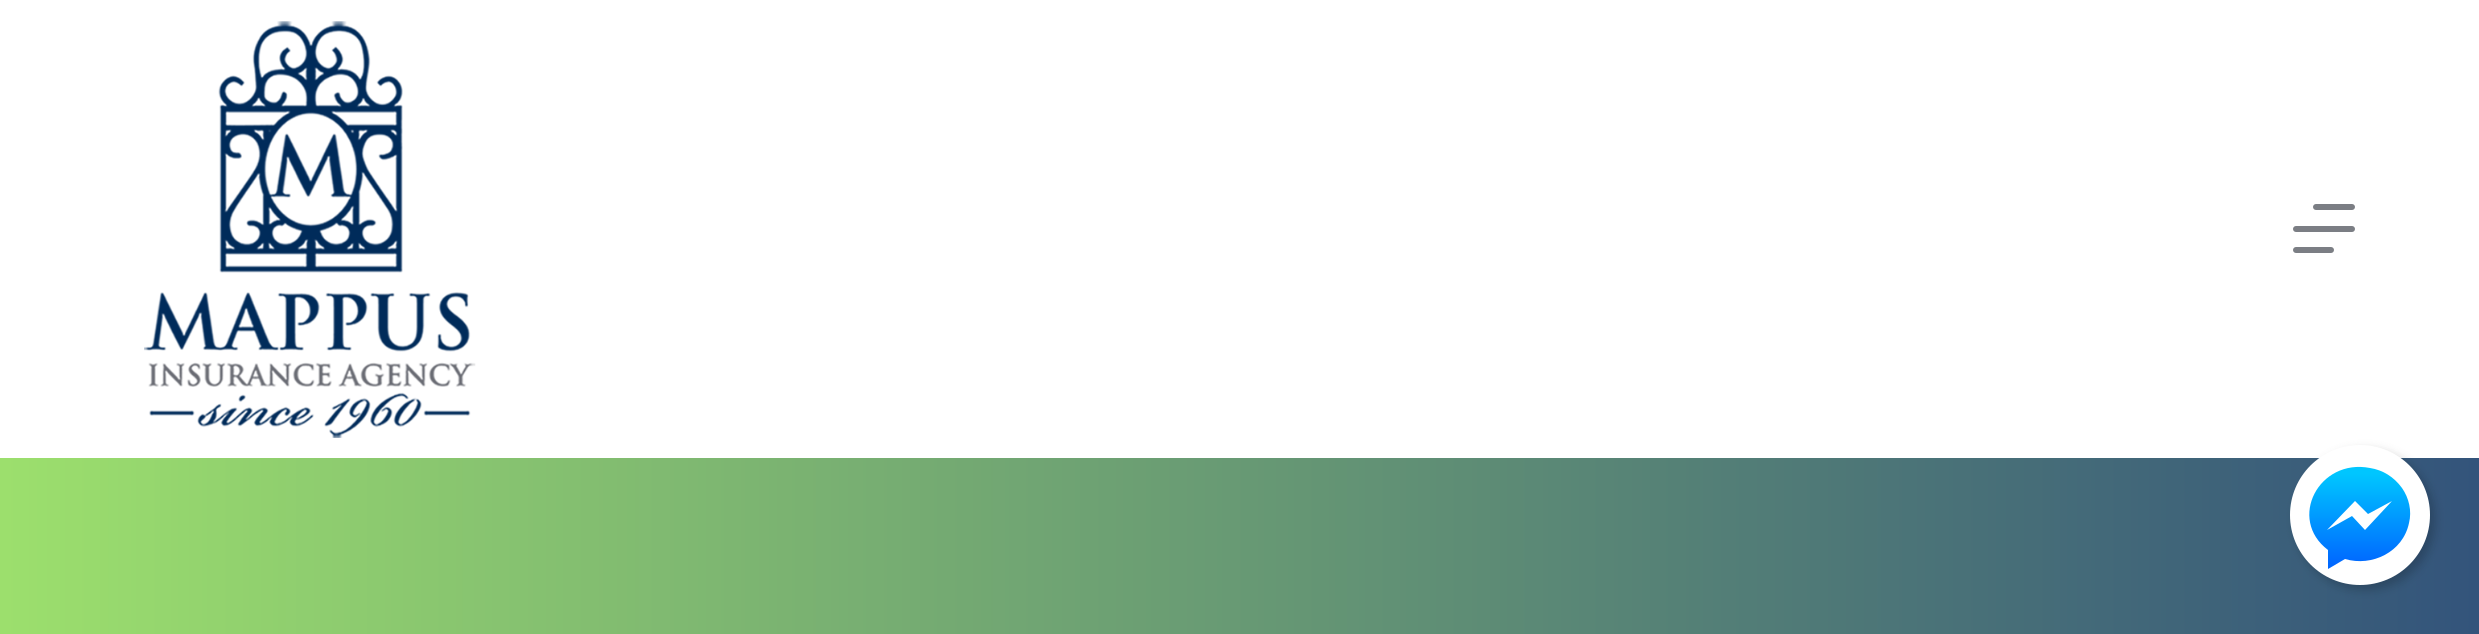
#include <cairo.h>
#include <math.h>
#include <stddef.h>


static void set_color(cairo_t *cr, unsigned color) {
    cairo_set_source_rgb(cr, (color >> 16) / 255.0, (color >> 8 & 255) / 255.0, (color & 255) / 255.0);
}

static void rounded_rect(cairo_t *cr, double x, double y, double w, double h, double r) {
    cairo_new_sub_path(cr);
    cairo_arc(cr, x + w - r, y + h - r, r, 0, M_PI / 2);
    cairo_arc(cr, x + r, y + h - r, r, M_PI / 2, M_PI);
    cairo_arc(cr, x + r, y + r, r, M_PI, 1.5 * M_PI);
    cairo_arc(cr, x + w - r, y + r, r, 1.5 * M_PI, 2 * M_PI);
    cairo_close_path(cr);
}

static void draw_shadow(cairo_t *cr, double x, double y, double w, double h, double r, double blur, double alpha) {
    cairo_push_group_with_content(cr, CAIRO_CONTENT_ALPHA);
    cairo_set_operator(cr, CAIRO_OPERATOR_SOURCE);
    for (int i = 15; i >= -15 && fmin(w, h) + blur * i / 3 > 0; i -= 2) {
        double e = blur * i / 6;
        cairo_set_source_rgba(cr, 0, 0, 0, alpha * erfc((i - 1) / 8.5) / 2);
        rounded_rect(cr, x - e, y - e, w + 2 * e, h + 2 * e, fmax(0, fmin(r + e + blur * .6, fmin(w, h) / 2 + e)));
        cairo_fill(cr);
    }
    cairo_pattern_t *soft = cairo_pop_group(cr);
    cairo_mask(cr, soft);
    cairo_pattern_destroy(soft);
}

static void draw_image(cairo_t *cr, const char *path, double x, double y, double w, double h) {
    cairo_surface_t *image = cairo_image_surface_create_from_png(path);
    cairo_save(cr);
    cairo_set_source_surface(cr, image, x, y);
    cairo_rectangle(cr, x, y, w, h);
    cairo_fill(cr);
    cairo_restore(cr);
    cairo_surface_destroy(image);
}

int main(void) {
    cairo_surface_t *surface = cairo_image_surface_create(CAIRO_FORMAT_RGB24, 2479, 634);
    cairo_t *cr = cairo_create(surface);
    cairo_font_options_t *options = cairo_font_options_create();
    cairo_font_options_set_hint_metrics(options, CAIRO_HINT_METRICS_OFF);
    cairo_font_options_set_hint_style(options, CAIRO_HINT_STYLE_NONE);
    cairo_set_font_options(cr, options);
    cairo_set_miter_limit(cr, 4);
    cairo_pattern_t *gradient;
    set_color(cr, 0xFFFFFF);
    cairo_paint(cr);
    draw_image(cr, "assets/img1.png", 144, 21, 332, 417);
    set_color(cr, 0x7B7E84);
    rounded_rect(cr, 2313, 204, 42, 6, 3);
    cairo_fill(cr);
    rounded_rect(cr, 2293, 226, 62, 6, 3);
    cairo_fill(cr);
    rounded_rect(cr, 2293, 247, 41, 6, 3);
    cairo_fill(cr);
    gradient = cairo_pattern_create_linear(0, 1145, 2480, 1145);
    cairo_pattern_add_color_stop_rgba(gradient, 0, 0.612, 0.875, 0.427, 1);
    cairo_pattern_add_color_stop_rgba(gradient, 1, 0.2, 0.329, 0.482, 1);
    cairo_set_source(cr, gradient);
    cairo_pattern_destroy(gradient);
    cairo_rectangle(cr, 0, 458, 2479, 176);
    cairo_fill(cr);
    set_color(cr, 0x000000);
    draw_shadow(cr, 2295, 450, 140, 140, 70, 5, 0.2);
    set_color(cr, 0xFFFFFF);
    cairo_arc(cr, 2360, 515, 70, 0, 2 * M_PI);
    cairo_fill(cr);
    gradient = cairo_pattern_create_linear(2360, 474, 2360, 564);
    cairo_pattern_add_color_stop_rgba(gradient, 0, 0, 0.776, 1, 1);
    cairo_pattern_add_color_stop_rgba(gradient, 1, 0, 0.408, 1, 1);
    cairo_set_source(cr, gradient);
    cairo_pattern_destroy(gradient);
    cairo_new_path(cr);
    cairo_move_to(cr, 2328, 550);
    cairo_line_to(cr, 2328, 569);
    cairo_line_to(cr, 2345, 559);
    cairo_curve_to(cr, 2372, 567, 2403, 552, 2409, 523);
    cairo_curve_to(cr, 2412, 511, 2409, 498, 2402, 488);
    cairo_curve_to(cr, 2394, 477, 2383, 470, 2370, 468);
    cairo_curve_to(cr, 2319, 458, 2287, 519, 2328, 550);
    cairo_close_path(cr);
    cairo_fill(cr);
    set_color(cr, 0xFFFFFF);
    cairo_new_path(cr);
    cairo_move_to(cr, 2355, 501);
    cairo_line_to(cr, 2327, 530);
    cairo_line_to(cr, 2352, 516);
    cairo_line_to(cr, 2365, 530);
    cairo_line_to(cr, 2392, 501);
    cairo_line_to(cr, 2368, 514);
    cairo_close_path(cr);
    cairo_fill(cr);
    cairo_surface_write_to_png(surface, "output.png");
    cairo_font_options_destroy(options);
    cairo_destroy(cr);
    cairo_surface_destroy(surface);
    return 0;
}
